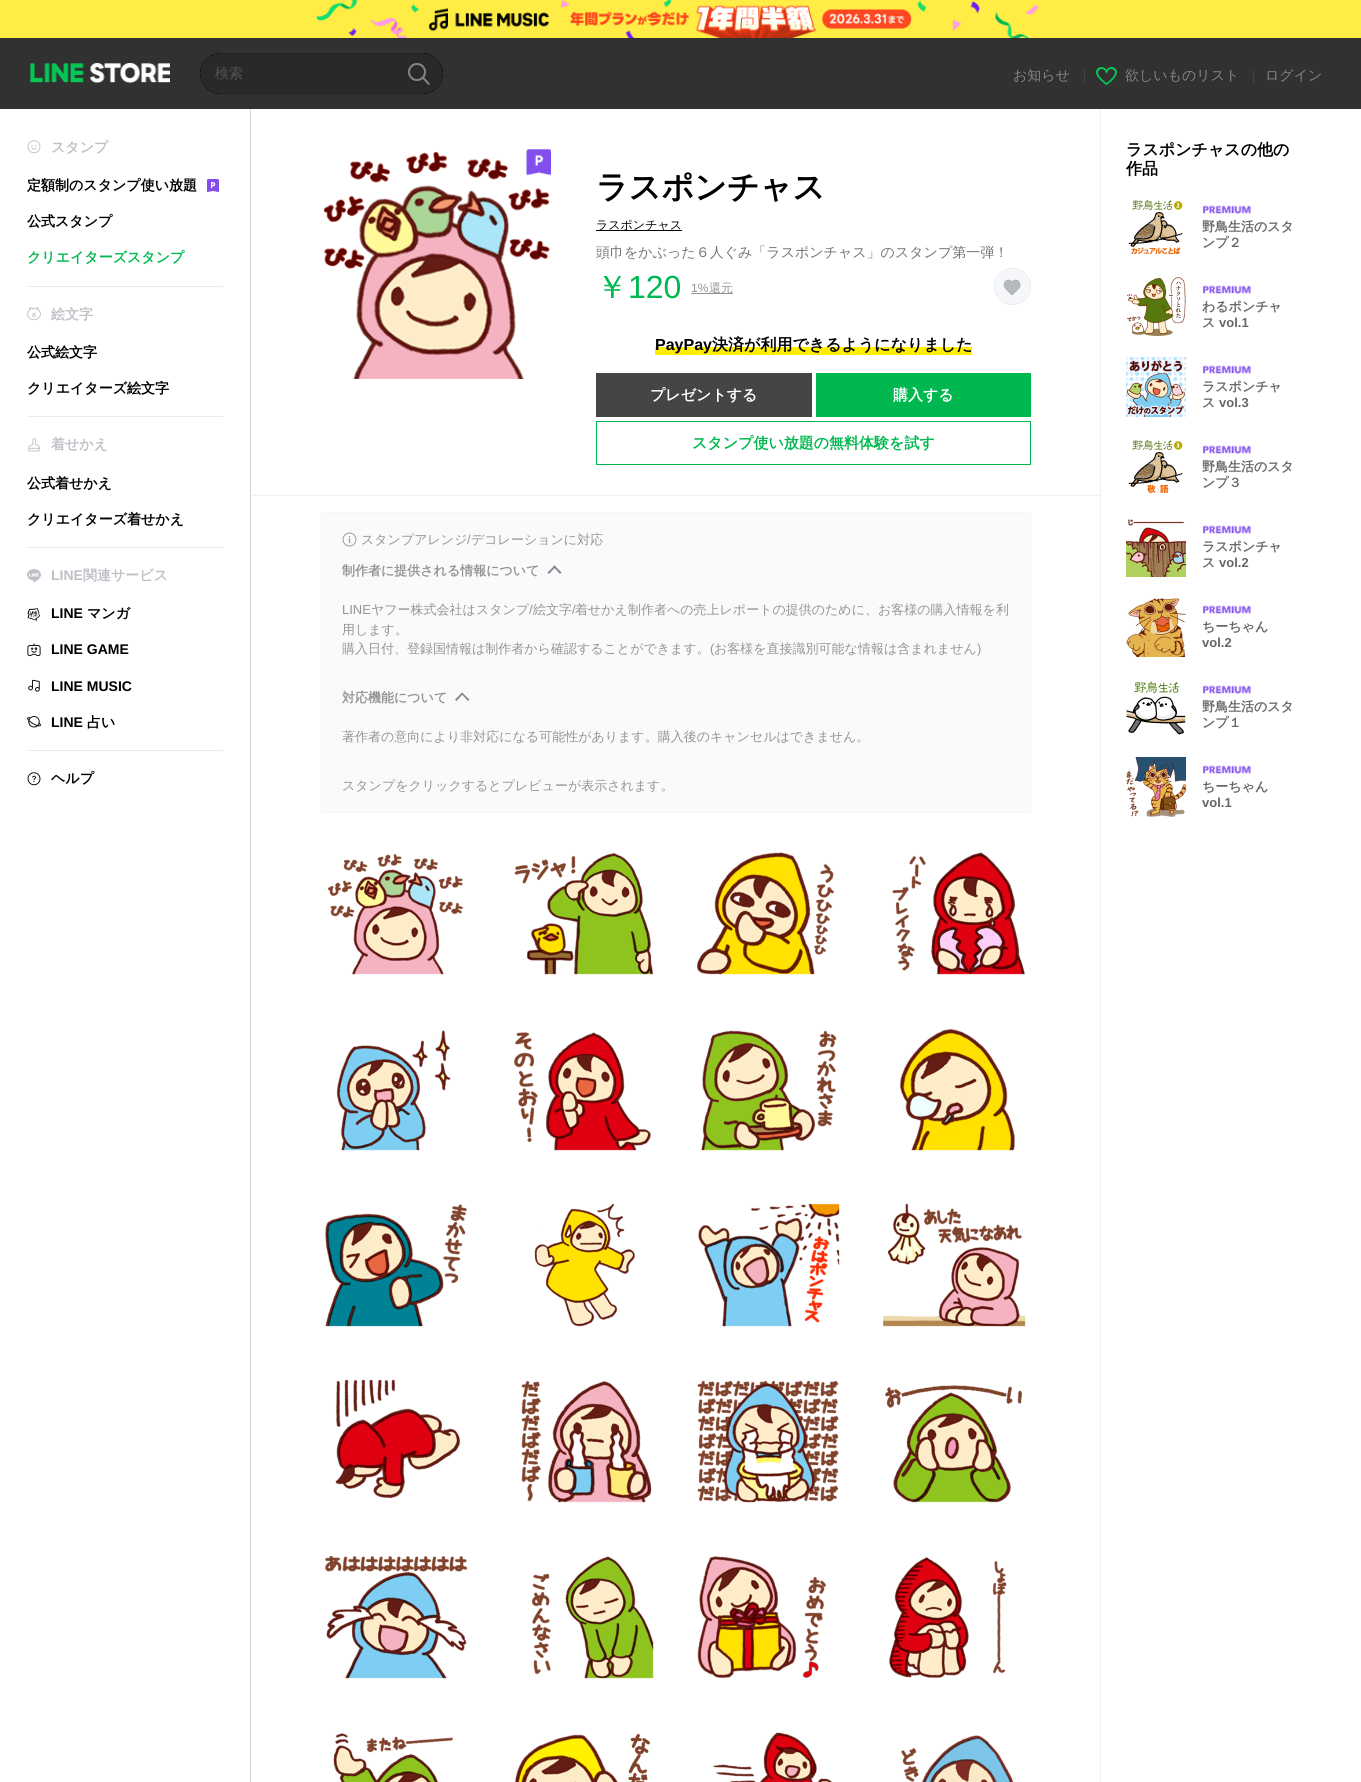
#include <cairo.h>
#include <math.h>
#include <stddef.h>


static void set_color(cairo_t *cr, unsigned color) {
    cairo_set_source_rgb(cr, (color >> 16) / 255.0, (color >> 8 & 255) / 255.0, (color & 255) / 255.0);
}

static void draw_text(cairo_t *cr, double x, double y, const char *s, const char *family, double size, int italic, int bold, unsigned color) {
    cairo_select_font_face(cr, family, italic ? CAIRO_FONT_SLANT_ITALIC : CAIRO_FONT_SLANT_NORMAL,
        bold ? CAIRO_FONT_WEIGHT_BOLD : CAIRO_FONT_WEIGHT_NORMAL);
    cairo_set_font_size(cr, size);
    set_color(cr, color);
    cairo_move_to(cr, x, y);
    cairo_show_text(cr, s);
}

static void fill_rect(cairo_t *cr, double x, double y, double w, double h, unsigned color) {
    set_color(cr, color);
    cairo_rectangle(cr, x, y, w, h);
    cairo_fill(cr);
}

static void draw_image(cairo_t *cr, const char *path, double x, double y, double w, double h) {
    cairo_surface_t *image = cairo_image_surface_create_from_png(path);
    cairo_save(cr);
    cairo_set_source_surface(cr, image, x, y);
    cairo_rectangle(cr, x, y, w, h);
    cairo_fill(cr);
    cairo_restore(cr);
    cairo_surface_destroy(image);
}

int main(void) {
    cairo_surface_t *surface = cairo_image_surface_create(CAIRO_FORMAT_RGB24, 1361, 1782);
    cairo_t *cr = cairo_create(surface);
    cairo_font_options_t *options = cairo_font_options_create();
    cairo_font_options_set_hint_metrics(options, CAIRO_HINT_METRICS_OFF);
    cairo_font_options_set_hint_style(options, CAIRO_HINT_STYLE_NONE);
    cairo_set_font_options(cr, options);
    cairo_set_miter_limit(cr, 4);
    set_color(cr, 0xFFFFFF);
    cairo_paint(cr);
    draw_image(cr, "assets/img1.png", 0, 0, 1361, 38);
    fill_rect(cr, 0, 38, 1361, 71, 0x313131);
    draw_image(cr, "assets/img2.png", 30, 63, 140, 20);
    draw_image(cr, "assets/img3.png", 200, 53, 243, 41);
    draw_text(cr, 215, 78, "検索", "WenQuanYi Zen Hei Medium", 14, 0, 0, 0x545454);
    draw_image(cr, "assets/img4.png", 408, 63, 22, 22);
    draw_text(cr, 1013, 80, "お知らせ", "WenQuanYi Zen Hei Medium", 14, 0, 0, 0x848484);
    fill_rect(cr, 1084, 70, 1, 13, 0x444444);
    draw_image(cr, "assets/img5.png", 1096, 67, 21, 18);
    draw_text(cr, 1125, 80, "欲しいものリスト", "WenQuanYi Zen Hei Medium", 14, 0, 0, 0x848484);
    fill_rect(cr, 1253, 70, 1, 13, 0x444444);
    draw_text(cr, 1265, 80, "ログイン", "WenQuanYi Zen Hei Medium", 14, 0, 0, 0x848484);
    draw_image(cr, "assets/img6.png", 27, 140, 14, 14);
    draw_text(cr, 51, 152, "スタンプ", "WenQuanYi Zen Hei", 14, 0, 1, 0xBEC0C7);
    draw_text(cr, 27, 190, "定額制のスタンプ使い放題", "WenQuanYi Zen Hei", 14, 0, 1, 0x000000);
    draw_image(cr, "assets/img7.png", 207, 179, 12, 13);
    draw_text(cr, 27, 226, "公式スタンプ", "WenQuanYi Zen Hei", 14, 0, 1, 0x000000);
    draw_text(cr, 27, 262, "クリエイターズスタンプ", "WenQuanYi Zen Hei", 14, 0, 1, 0x00B84F);
    fill_rect(cr, 27, 286, 196, 1, 0xEBEBEB);
    draw_image(cr, "assets/img8.png", 27, 307, 14, 14);
    draw_text(cr, 51, 319, "絵文字", "WenQuanYi Zen Hei", 14, 0, 1, 0xBEC0C7);
    draw_text(cr, 27, 357, "公式絵文字", "WenQuanYi Zen Hei", 14, 0, 1, 0x000000);
    draw_text(cr, 27, 393, "クリエイターズ絵文字", "WenQuanYi Zen Hei", 14, 0, 1, 0x000000);
    fill_rect(cr, 27, 416, 196, 1, 0xEBEBEB);
    draw_image(cr, "assets/img9.png", 28, 438, 12, 14);
    draw_text(cr, 51, 449, "着せかえ", "WenQuanYi Zen Hei", 14, 0, 1, 0xBEC0C7);
    draw_text(cr, 27, 488, "公式着せかえ", "WenQuanYi Zen Hei", 14, 0, 1, 0x000000);
    draw_text(cr, 27, 524, "クリエイターズ着せかえ", "WenQuanYi Zen Hei", 14, 0, 1, 0x000000);
    fill_rect(cr, 27, 547, 196, 1, 0xEBEBEB);
    draw_image(cr, "assets/img10.png", 27, 569, 14, 14);
    draw_text(cr, 51, 580, "LINE", "Liberation Sans", 14, 0, 1, 0xBEC0C7);
    draw_text(cr, 83, 580, "関連サービス", "WenQuanYi Zen Hei", 14, 0, 1, 0xBEC0C7);
    draw_image(cr, "assets/img11.png", 27, 608, 13, 13);
    draw_text(cr, 51, 618, "LINE", "Liberation Sans", 14, 0, 1, 0x000000);
    draw_text(cr, 87, 618, "マンガ", "WenQuanYi Zen Hei", 14, 0, 1, 0x000000);
    draw_image(cr, "assets/img12.png", 27, 643, 14, 14);
    draw_text(cr, 51, 654, "LINE GAME", "Liberation Sans", 14, 0, 1, 0x000000);
    draw_image(cr, "assets/img13.png", 28, 679, 12, 13);
    draw_text(cr, 51, 691, "LINE MUSIC", "Liberation Sans", 14, 0, 1, 0x000000);
    draw_image(cr, "assets/img14.png", 27, 716, 14, 12);
    draw_text(cr, 51, 727, "LINE", "Liberation Sans", 14, 0, 1, 0x000000);
    draw_text(cr, 87, 727, "占い", "WenQuanYi Zen Hei", 14, 0, 1, 0x000000);
    fill_rect(cr, 27, 750, 196, 1, 0xEBEBEB);
    draw_image(cr, "assets/img15.png", 27, 772, 14, 14);
    draw_text(cr, 51, 783, "ヘルプ", "WenQuanYi Zen Hei", 14, 0, 1, 0x000000);
    fill_rect(cr, 250, 109, 1, 1673, 0xD6D6D6);
    draw_image(cr, "assets/img17.png", 323, 151, 227, 228);
    draw_image(cr, "assets/img16.png", 526, 149, 25, 27);
    draw_text(cr, 596, 198, "ラスポンチャス", "WenQuanYi Zen Hei", 32, 0, 1, 0x000000);
    fill_rect(cr, 596, 230, 86, 1, 0x000000);
    draw_text(cr, 596, 229, "ラスポンチャス", "WenQuanYi Zen Hei Medium", 12, 0, 0, 0x000000);
    draw_text(cr, 596, 257, "頭巾をかぶった６人ぐみ「ラスポンチャス」のスタンプ第一弾！", "WenQuanYi Zen Hei Medium", 14, 0, 0, 0x737373);
    draw_text(cr, 596, 298, "￥", "WenQuanYi Zen Hei Medium", 32, 0, 0, 0x00B84F);
    draw_text(cr, 628, 298, "120", "Liberation Sans", 32, 0, 0, 0x00B84F);
    draw_text(cr, 691, 292, "1%", "Liberation Sans", 12, 0, 0, 0x949494);
    fill_rect(cr, 691, 293, 42, 1, 0x949494);
    draw_text(cr, 709, 292, "還元", "WenQuanYi Zen Hei Medium", 12, 0, 0, 0x949494);
    draw_image(cr, "assets/img18.png", 994, 268, 37, 37);
    fill_rect(cr, 655, 347, 317, 8, 0xFFEE00);
    draw_text(cr, 655, 350, "PayPay", "Liberation Sans", 16, 0, 1, 0x000000);
    draw_text(cr, 712, 350, "決済が利用できるようになりました", "WenQuanYi Zen Hei", 16, 0, 1, 0x000000);
    fill_rect(cr, 596, 373, 216, 44, 0x454545);
    draw_text(cr, 650, 400, "プレゼントする", "WenQuanYi Zen Hei", 15, 0, 1, 0xFFFFFF);
    fill_rect(cr, 816, 373, 215, 44, 0x00B84F);
    draw_text(cr, 893, 400, "購入する", "WenQuanYi Zen Hei", 15, 0, 1, 0xFFFFFF);
    cairo_rectangle(cr, 596.5, 421.5, 434, 43);
    set_color(cr, 0x00B84F);
    cairo_set_line_width(cr, 1);
    cairo_stroke(cr);
    draw_text(cr, 692, 448, "スタンプ使い放題の無料体験を試す", "WenQuanYi Zen Hei", 15, 0, 1, 0x00B84F);
    fill_rect(cr, 251, 495, 850, 1, 0xF2F2F2);
    fill_rect(cr, 1100, 109, 1, 1673, 0xEFEFEF);
    set_color(cr, 0xFAFAFA);
    cairo_rectangle(cr, 321.5, 512.5, 709, 300);
    cairo_fill_preserve(cr);
    set_color(cr, 0xF5F5F5);
    cairo_stroke(cr);
    draw_image(cr, "assets/img19.png", 342, 532, 15, 15);
    draw_text(cr, 361, 544, "スタンプアレンジ", "WenQuanYi Zen Hei Medium", 13, 0, 0, 0x949494);
    draw_text(cr, 467, 544, "/", "Liberation Sans", 13, 0, 0, 0x949494);
    draw_text(cr, 471, 544, "デコレーションに対応", "WenQuanYi Zen Hei Medium", 13, 0, 0, 0x949494);
    draw_text(cr, 342, 575, "制作者に提供される情報について", "WenQuanYi Zen Hei", 13, 0, 1, 0x949494);
    set_color(cr, 0x848A94);
    cairo_new_path(cr);
    cairo_move_to(cr, 547.5, 572.5);
    cairo_line_to(cr, 554.5, 565.5);
    cairo_line_to(cr, 556, 566.5);
    cairo_line_to(cr, 549, 574);
    cairo_close_path(cr);
    cairo_fill(cr);
    cairo_new_path(cr);
    cairo_move_to(cr, 553, 566.5);
    cairo_line_to(cr, 554.5, 565.5);
    cairo_line_to(cr, 561.5, 572.5);
    cairo_line_to(cr, 560, 574);
    cairo_close_path(cr);
    cairo_fill(cr);
    draw_text(cr, 342, 614, "LINE", "Liberation Sans", 13, 0, 0, 0x949494);
    draw_text(cr, 371, 614, "ヤフー株式会社はスタンプ", "WenQuanYi Zen Hei Medium", 13, 0, 0, 0x949494);
    draw_text(cr, 529, 614, "/", "Liberation Sans", 13, 0, 0, 0x949494);
    draw_text(cr, 533, 614, "絵文字", "WenQuanYi Zen Hei Medium", 13, 0, 0, 0x949494);
    draw_text(cr, 572, 614, "/", "Liberation Sans", 13, 0, 0, 0x949494);
    draw_text(cr, 575, 614, "着せかえ制作者への売上レポートの提供のために、お客様の購入情報を利", "WenQuanYi Zen Hei Medium", 13, 0, 0, 0x949494);
    draw_text(cr, 342, 634, "用します。", "WenQuanYi Zen Hei Medium", 13, 0, 0, 0x949494);
    draw_text(cr, 342, 653, "購入日付、登録国情報は制作者から確認することができます。", "WenQuanYi Zen Hei Medium", 13, 0, 0, 0x949494);
    draw_text(cr, 710, 653, "(", "Liberation Sans", 13, 0, 0, 0x949494);
    draw_text(cr, 714, 653, "お客様を直接識別可能な情報は含まれません", "WenQuanYi Zen Hei Medium", 13, 0, 0, 0x949494);
    draw_text(cr, 977, 653, ")", "Liberation Sans", 13, 0, 0, 0x949494);
    draw_text(cr, 342, 702, "対応機能について", "WenQuanYi Zen Hei", 13, 0, 1, 0x949494);
    set_color(cr, 0x848A94);
    cairo_new_path(cr);
    cairo_move_to(cr, 455, 699.5);
    cairo_line_to(cr, 462, 692.5);
    cairo_line_to(cr, 463.5, 693.5);
    cairo_line_to(cr, 456.5, 701);
    cairo_close_path(cr);
    cairo_fill(cr);
    cairo_new_path(cr);
    cairo_move_to(cr, 461, 693.5);
    cairo_line_to(cr, 462, 692.5);
    cairo_line_to(cr, 469.5, 699.5);
    cairo_line_to(cr, 468, 701);
    cairo_close_path(cr);
    cairo_fill(cr);
    draw_text(cr, 342, 741, "著作者の意向により非対応になる可能性があります。購入後のキャンセルはできません。", "WenQuanYi Zen Hei Medium", 13, 0, 0, 0x949494);
    draw_text(cr, 342, 790, "スタンプをクリックするとプレビューが表示されます。", "WenQuanYi Zen Hei Medium", 13, 0, 0, 0x949494);
    draw_image(cr, "assets/img20.png", 327, 854, 137, 121);
    draw_image(cr, "assets/img21.png", 514, 852, 140, 123);
    draw_image(cr, "assets/img22.png", 697, 852, 138, 123);
    draw_image(cr, "assets/img23.png", 892, 852, 133, 123);
    draw_image(cr, "assets/img24.png", 336, 1030, 115, 121);
    draw_image(cr, "assets/img25.png", 514, 1032, 137, 119);
    draw_image(cr, "assets/img26.png", 701, 1030, 136, 121);
    draw_image(cr, "assets/img27.png", 899, 1028, 116, 123);
    draw_image(cr, "assets/img28.png", 325, 1204, 142, 123);
    draw_image(cr, "assets/img29.png", 534, 1203, 101, 124);
    draw_image(cr, "assets/img30.png", 698, 1203, 142, 124);
    draw_image(cr, "assets/img31.png", 882, 1203, 144, 124);
    draw_image(cr, "assets/img32.png", 335, 1379, 126, 120);
    draw_image(cr, "assets/img33.png", 521, 1380, 131, 123);
    draw_image(cr, "assets/img34.png", 697, 1380, 142, 123);
    draw_image(cr, "assets/img35.png", 885, 1385, 138, 118);
    draw_image(cr, "assets/img36.png", 325, 1555, 143, 124);
    draw_image(cr, "assets/img37.png", 531, 1556, 123, 123);
    draw_image(cr, "assets/img38.png", 697, 1556, 129, 123);
    draw_image(cr, "assets/img39.png", 889, 1557, 118, 121);
    draw_image(cr, "assets/img40.png", 333, 1733, 120, 49);
    draw_image(cr, "assets/img41.png", 514, 1733, 137, 49);
    draw_image(cr, "assets/img42.png", 713, 1732, 119, 50);
    draw_image(cr, "assets/img43.png", 901, 1735, 113, 47);
    draw_text(cr, 1126, 155, "ラスポンチャスの他の", "WenQuanYi Zen Hei", 16, 0, 1, 0x000000);
    draw_text(cr, 1126, 174, "作品", "WenQuanYi Zen Hei", 16, 0, 1, 0x000000);
    draw_image(cr, "assets/img44.png", 1128, 200, 55, 55);
    draw_image(cr, "assets/img45.png", 1202, 205, 49, 9);
    draw_text(cr, 1202, 231, "野鳥生活のスタ", "WenQuanYi Zen Hei", 13, 0, 1, 0x666666);
    draw_text(cr, 1202, 247, "ンプ２", "WenQuanYi Zen Hei", 13, 0, 1, 0x666666);
    draw_image(cr, "assets/img46.png", 1127, 277, 59, 59);
    draw_image(cr, "assets/img45.png", 1202, 285, 49, 9);
    draw_text(cr, 1202, 311, "わるポンチャ", "WenQuanYi Zen Hei", 13, 0, 1, 0x666666);
    draw_text(cr, 1202, 327, "ス", "WenQuanYi Zen Hei", 13, 0, 1, 0x666666);
    draw_text(cr, 1219, 327, "vol.1", "Liberation Sans", 13, 0, 1, 0x666666);
    draw_image(cr, "assets/img47.png", 1126, 357, 60, 60);
    draw_image(cr, "assets/img45.png", 1202, 365, 49, 9);
    draw_text(cr, 1202, 391, "ラスポンチャ", "WenQuanYi Zen Hei", 13, 0, 1, 0x666666);
    draw_text(cr, 1202, 407, "ス", "WenQuanYi Zen Hei", 13, 0, 1, 0x666666);
    draw_text(cr, 1219, 407, "vol.3", "Liberation Sans", 13, 0, 1, 0x666666);
    draw_image(cr, "assets/img48.png", 1128, 440, 55, 53);
    draw_image(cr, "assets/img45.png", 1202, 445, 49, 9);
    draw_text(cr, 1202, 471, "野鳥生活のスタ", "WenQuanYi Zen Hei", 13, 0, 1, 0x666666);
    draw_text(cr, 1202, 487, "ンプ３", "WenQuanYi Zen Hei", 13, 0, 1, 0x666666);
    draw_image(cr, "assets/img49.png", 1126, 519, 60, 58);
    draw_image(cr, "assets/img45.png", 1202, 525, 49, 9);
    draw_text(cr, 1202, 551, "ラスポンチャ", "WenQuanYi Zen Hei", 13, 0, 1, 0x666666);
    draw_text(cr, 1202, 567, "ス", "WenQuanYi Zen Hei", 13, 0, 1, 0x666666);
    draw_text(cr, 1219, 567, "vol.2", "Liberation Sans", 13, 0, 1, 0x666666);
    draw_image(cr, "assets/img50.png", 1126, 598, 60, 59);
    draw_image(cr, "assets/img45.png", 1202, 605, 49, 9);
    draw_text(cr, 1202, 631, "ちーちゃん", "WenQuanYi Zen Hei", 13, 0, 1, 0x666666);
    draw_text(cr, 1202, 647, "vol.2", "Liberation Sans", 13, 0, 1, 0x666666);
    draw_image(cr, "assets/img51.png", 1126, 681, 60, 54);
    draw_image(cr, "assets/img45.png", 1202, 685, 49, 9);
    draw_text(cr, 1202, 711, "野鳥生活のスタ", "WenQuanYi Zen Hei", 13, 0, 1, 0x666666);
    draw_text(cr, 1202, 727, "ンプ１", "WenQuanYi Zen Hei", 13, 0, 1, 0x666666);
    draw_image(cr, "assets/img52.png", 1126, 757, 60, 60);
    draw_image(cr, "assets/img45.png", 1202, 765, 49, 9);
    draw_text(cr, 1202, 791, "ちーちゃん", "WenQuanYi Zen Hei", 13, 0, 1, 0x666666);
    draw_text(cr, 1202, 807, "vol.1", "Liberation Sans", 13, 0, 1, 0x666666);
    cairo_surface_write_to_png(surface, "output.png");
    cairo_font_options_destroy(options);
    cairo_destroy(cr);
    cairo_surface_destroy(surface);
    return 0;
}
